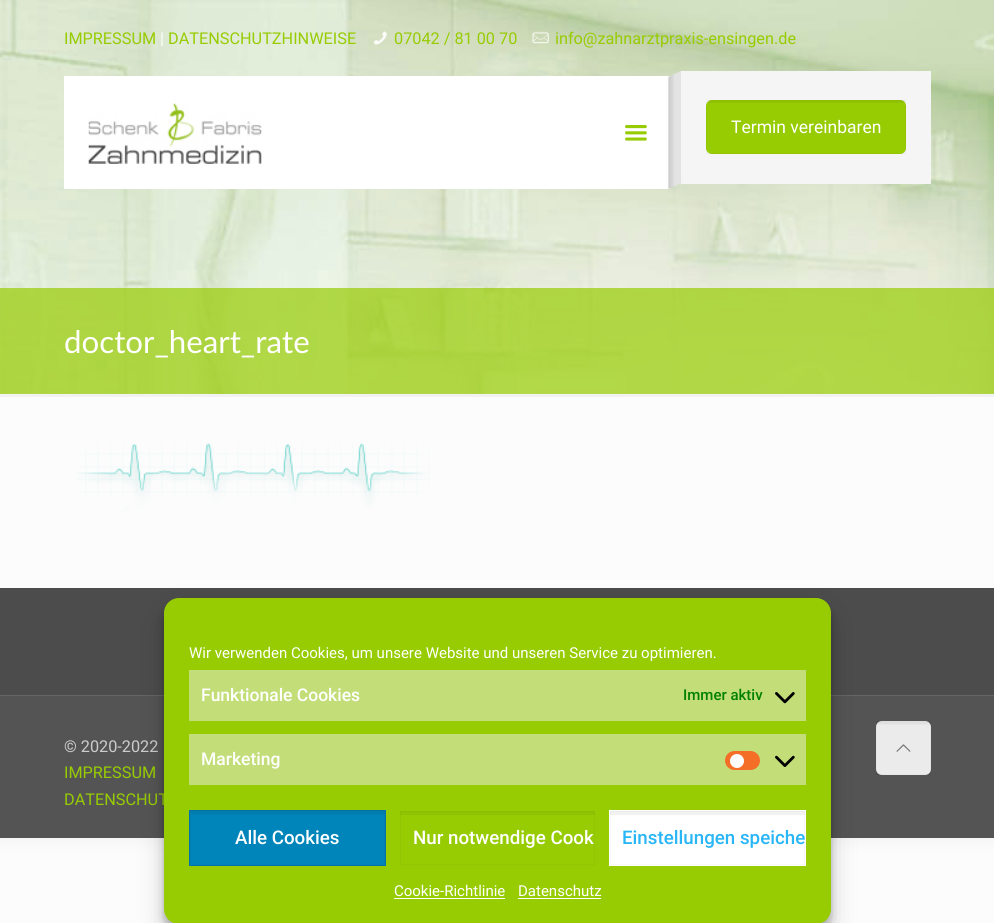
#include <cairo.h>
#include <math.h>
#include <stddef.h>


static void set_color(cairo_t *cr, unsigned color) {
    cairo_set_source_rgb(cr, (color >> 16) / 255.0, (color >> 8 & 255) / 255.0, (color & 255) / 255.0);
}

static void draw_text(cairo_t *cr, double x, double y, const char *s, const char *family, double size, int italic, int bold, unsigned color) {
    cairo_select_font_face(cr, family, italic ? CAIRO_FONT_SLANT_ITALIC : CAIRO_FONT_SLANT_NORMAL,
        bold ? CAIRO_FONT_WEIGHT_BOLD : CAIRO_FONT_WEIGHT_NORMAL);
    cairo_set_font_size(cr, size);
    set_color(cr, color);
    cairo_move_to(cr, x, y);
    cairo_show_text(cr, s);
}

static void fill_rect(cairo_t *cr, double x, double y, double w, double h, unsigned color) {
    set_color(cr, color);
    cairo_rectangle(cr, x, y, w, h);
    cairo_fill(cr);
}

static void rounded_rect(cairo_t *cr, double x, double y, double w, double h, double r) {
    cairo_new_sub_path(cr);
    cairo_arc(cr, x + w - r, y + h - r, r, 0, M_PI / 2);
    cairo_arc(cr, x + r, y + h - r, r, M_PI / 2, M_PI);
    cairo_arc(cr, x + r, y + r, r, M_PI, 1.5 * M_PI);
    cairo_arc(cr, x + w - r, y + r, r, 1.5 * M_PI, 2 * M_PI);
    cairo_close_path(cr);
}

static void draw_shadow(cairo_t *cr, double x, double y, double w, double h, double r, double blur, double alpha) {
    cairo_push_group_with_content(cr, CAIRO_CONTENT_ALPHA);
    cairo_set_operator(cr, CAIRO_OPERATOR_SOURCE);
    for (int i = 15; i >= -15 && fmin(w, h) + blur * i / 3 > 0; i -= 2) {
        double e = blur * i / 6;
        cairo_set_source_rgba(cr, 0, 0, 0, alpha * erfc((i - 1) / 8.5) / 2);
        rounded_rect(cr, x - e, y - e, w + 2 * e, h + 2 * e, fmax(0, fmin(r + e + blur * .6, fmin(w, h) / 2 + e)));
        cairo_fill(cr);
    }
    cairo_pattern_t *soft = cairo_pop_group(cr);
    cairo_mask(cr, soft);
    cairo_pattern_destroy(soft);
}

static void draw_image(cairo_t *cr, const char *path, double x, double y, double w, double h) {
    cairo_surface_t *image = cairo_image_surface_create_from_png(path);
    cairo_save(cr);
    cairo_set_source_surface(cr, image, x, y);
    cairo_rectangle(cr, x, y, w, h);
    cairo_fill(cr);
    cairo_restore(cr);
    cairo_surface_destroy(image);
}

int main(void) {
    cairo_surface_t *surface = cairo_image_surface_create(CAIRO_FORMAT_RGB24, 994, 923);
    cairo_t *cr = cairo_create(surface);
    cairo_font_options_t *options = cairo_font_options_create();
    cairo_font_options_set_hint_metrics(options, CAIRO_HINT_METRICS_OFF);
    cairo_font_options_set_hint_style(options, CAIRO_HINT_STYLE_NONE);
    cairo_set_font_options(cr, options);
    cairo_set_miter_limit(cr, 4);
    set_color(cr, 0xFCFCFC);
    cairo_paint(cr);
    set_color(cr, 0x000000);
    draw_shadow(cr, 0, 0, 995, 838, 0, 9.5, 0.06);
    fill_rect(cr, 0, 393, 994, 195, 0xFCFCFC);
    draw_image(cr, "assets/img1.png", 0, 0, 994, 394);
    draw_text(cr, 64, 44, "IMPRESSUM", "Roboto", 16.25, 0, 0, 0x97CC02);
    draw_text(cr, 160, 44, "|", "Roboto", 16.25, 0, 0, 0xFFFFFF);
    draw_text(cr, 168, 44, "DATENSCHUTZHINWEISE", "Roboto", 16.25, 0, 0, 0x97CC02);
    draw_image(cr, "assets/img2.png", 373, 31, 14, 14);
    draw_text(cr, 394, 44, "07042 / 81 00 70", "Roboto", 16.25, 0, 0, 0x97CC02);
    draw_image(cr, "assets/img3.png", 532, 32, 17, 12);
    draw_text(cr, 555, 44, "info@zahnarztpraxis-ensingen.de", "Roboto", 16.25, 0, 0, 0x97CC02);
    fill_rect(cr, 64, 76, 606, 113, 0xFFFFFF);
    draw_image(cr, "assets/img4.png", 88, 103, 174, 61);
    draw_image(cr, "assets/img5.png", 625, 125, 22, 16);
    fill_rect(cr, 681, 71, 250, 113, 0xF5F5F5);
    set_color(cr, 0xE3E3E3);
    cairo_new_path(cr);
    cairo_move_to(cr, 668, 77);
    cairo_line_to(cr, 681, 71);
    cairo_line_to(cr, 681, 183);
    cairo_line_to(cr, 668, 189);
    cairo_close_path(cr);
    cairo_fill(cr);
    draw_image(cr, "assets/img6.png", 668, 75, 6, 114);
    set_color(cr, 0x97CC02);
    rounded_rect(cr, 706, 100, 200, 54, 6);
    cairo_fill(cr);
    cairo_set_source_rgba(cr, 0, 0, 0, 0.05);
    cairo_rectangle(cr, 708, 100, 197, 3);
    cairo_fill(cr);
    cairo_rectangle(cr, 706.5, 100.5, 199, 53);
    cairo_set_source_rgba(cr, 0, 0, 0, 0.03);
    cairo_set_line_width(cr, 1);
    cairo_stroke(cr);
    draw_text(cr, 731, 133, "Termin vereinbaren", "Roboto", 17.5, 0, 0, 0xFFFFFF);
    cairo_set_source_rgba(cr, 0.592, 0.8, 0.008, 0.7);
    cairo_rectangle(cr, 0, 288, 994, 106);
    cairo_fill(cr);
    draw_text(cr, 64, 353, "doctor_heart_rate", "Lato", 31.25, 0, 0, 0xFFFFFF);
    fill_rect(cr, 0, 394, 994, 3, 0xF2F2F2);
    draw_image(cr, "assets/img7.png", 75, 443, 355, 68);
    fill_rect(cr, 0, 696, 994, 142, 0x545454);
    fill_rect(cr, 0, 588, 994, 107, 0x4C4C4C);
    fill_rect(cr, 0, 695, 994, 1, 0x656565);
    draw_text(cr, 64, 752, "© 2020-2022", "Roboto", 16.25, 0, 0, 0xCCCCCC);
    draw_text(cr, 64, 778, "IMPRESSUM", "Roboto", 16.25, 0, 0, 0x97CC02);
    draw_text(cr, 64, 805, "DATENSCHUT", "Roboto", 16.25, 0, 0, 0x97CC02);
    set_color(cr, 0xF7F7F7);
    rounded_rect(cr, 876, 721, 55, 54, 6);
    cairo_fill(cr);
    draw_image(cr, "assets/img8.png", 878, 721, 52, 4);
    cairo_rectangle(cr, 876.5, 721.5, 54, 53);
    cairo_set_source_rgba(cr, 0, 0, 0, 0.03);
    cairo_stroke(cr);
    cairo_set_source_rgba(cr, 0, 0, 0, 0.05);
    cairo_rectangle(cr, 876, 721, 55, 54);
    cairo_fill(cr);
    draw_image(cr, "assets/img9.png", 896, 744, 15, 8);
    set_color(cr, 0x000000);
    draw_shadow(cr, 164, 605, 667, 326, 15, 4, 0.23);
    draw_shadow(cr, 164, 610, 667, 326, 15, 12.5, 0.19);
    set_color(cr, 0x97CC02);
    rounded_rect(cr, 164, 598, 667, 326, 15);
    cairo_fill(cr);
    draw_text(cr, 189, 658, "Wir verwenden Cookies, um unsere Website und unseren Service zu optimieren.", "Roboto", 15, 0, 0, 0xFFFFFF);
    fill_rect(cr, 189, 670, 617, 51, 0xC3DE79);
    draw_text(cr, 201, 701, "Funktionale Cookies", "Roboto Medium", 17.5, 0, 0, 0xFFFFFF);
    draw_text(cr, 683, 700, "Immer aktiv", "Roboto Medium", 15, 0, 0, 0x008000);
    draw_image(cr, "assets/img10.png", 775, 692, 20, 12);
    fill_rect(cr, 189, 734, 617, 51, 0xC3DE79);
    draw_text(cr, 201, 765, "Marketing", "Roboto Medium", 17.5, 0, 0, 0xFFFFFF);
    set_color(cr, 0xF56E28);
    rounded_rect(cr, 725, 751, 35, 19, 9.5);
    cairo_fill(cr);
    set_color(cr, 0xFFFFFF);
    cairo_arc(cr, 737, 761, 7, 0, 2 * M_PI);
    cairo_fill(cr);
    draw_image(cr, "assets/img11.png", 775, 755, 20, 12);
    fill_rect(cr, 190, 815, 195, 50, 0x0085BA);
    fill_rect(cr, 189, 811, 197, 4, 0x007EB1);
    cairo_rectangle(cr, 190.5, 811.5, 194, 53);
    cairo_set_source_rgba(cr, 0, 0, 0, 0.03);
    cairo_stroke(cr);
    cairo_rectangle(cr, 189.5, 810.5, 196, 55);
    set_color(cr, 0x0073AA);
    cairo_stroke(cr);
    draw_text(cr, 235, 844, "Alle Cookies", "Roboto Medium", 18.75, 0, 0, 0xFFFFFF);
    fill_rect(cr, 399, 811, 197, 4, 0x8FC202);
    cairo_rectangle(cr, 400.5, 811.5, 194, 53);
    cairo_set_source_rgba(cr, 0, 0, 0, 0.03);
    cairo_stroke(cr);
    cairo_rectangle(cr, 399.5, 810.5, 196, 55);
    set_color(cr, 0x97CC02);
    cairo_stroke(cr);
    draw_text(cr, 413, 844, "Nur notwendige Cook", "Roboto Medium", 18.75, 0, 0, 0xFFFFFF);
    fill_rect(cr, 610, 815, 195, 50, 0xFFFFFF);
    fill_rect(cr, 609, 811, 197, 4, 0xF2F2F2);
    cairo_rectangle(cr, 610.5, 811.5, 194, 53);
    cairo_set_source_rgba(cr, 0, 0, 0, 0.03);
    cairo_stroke(cr);
    cairo_rectangle(cr, 609.5, 810.5, 196, 55);
    set_color(cr, 0xFFFFFF);
    cairo_stroke(cr);
    draw_text(cr, 622, 844, "Einstellungen speiche", "Roboto Medium", 18.75, 0, 0, 0x29B6F6);
    draw_text(cr, 394, 896, "Cookie-Richtlinie", "Roboto", 15, 0, 0, 0xFFFFFF);
    fill_rect(cr, 394, 898, 111, 1, 0xFFFFFF);
    draw_text(cr, 518, 896, "Datenschutz", "Roboto", 15, 0, 0, 0xFFFFFF);
    fill_rect(cr, 518, 898, 83, 1, 0xFFFFFF);
    cairo_surface_write_to_png(surface, "output.png");
    cairo_font_options_destroy(options);
    cairo_destroy(cr);
    cairo_surface_destroy(surface);
    return 0;
}
